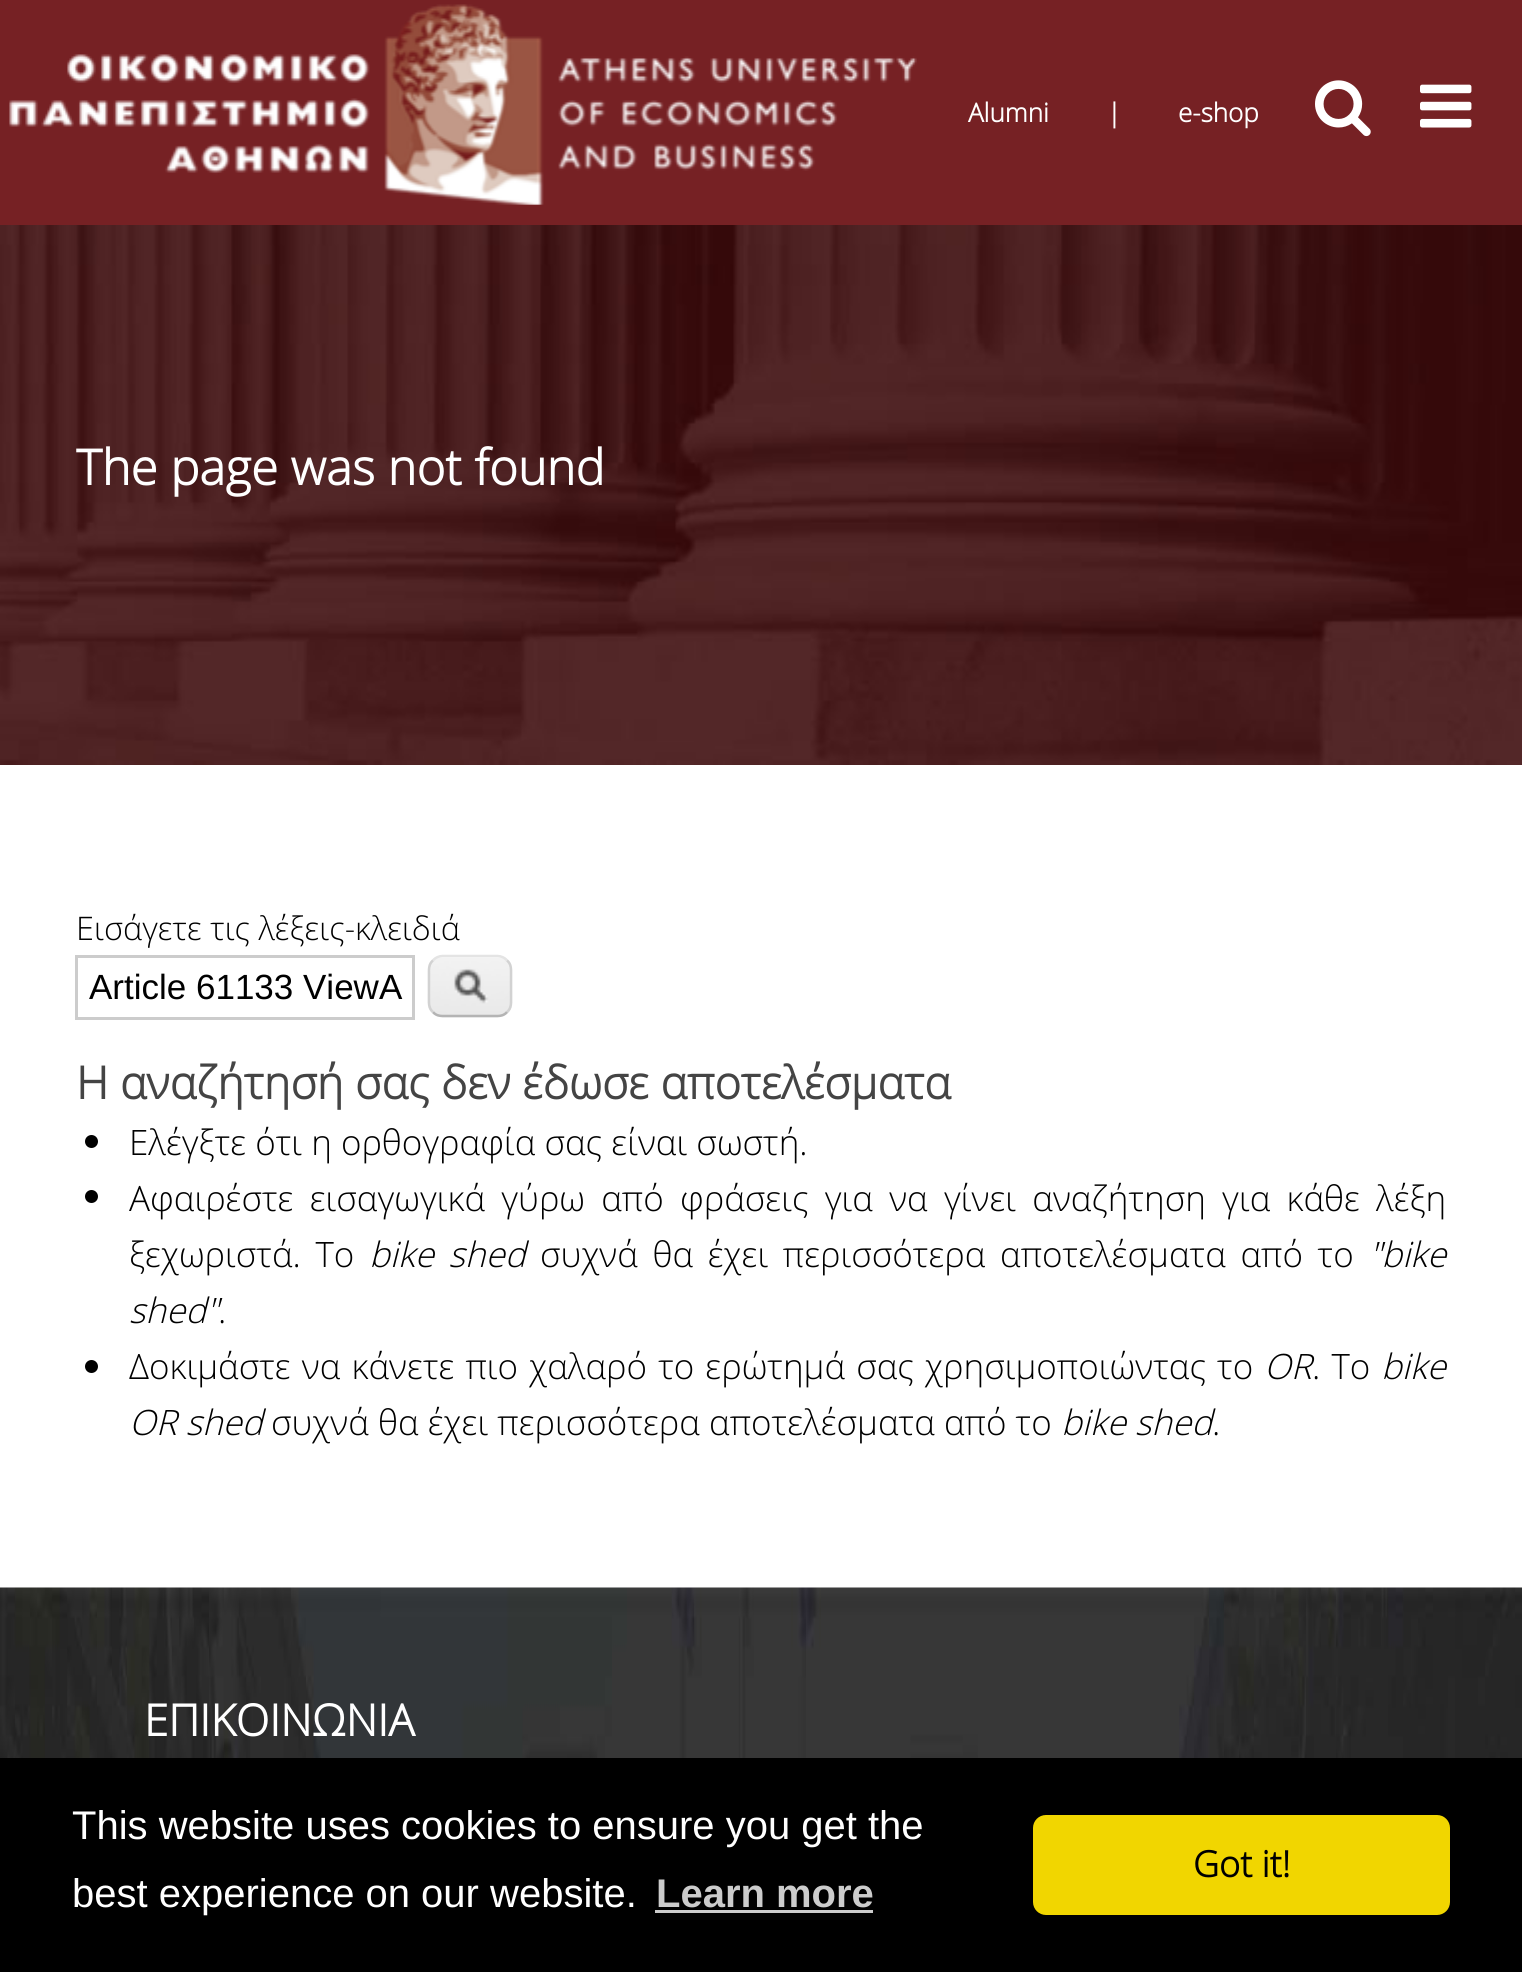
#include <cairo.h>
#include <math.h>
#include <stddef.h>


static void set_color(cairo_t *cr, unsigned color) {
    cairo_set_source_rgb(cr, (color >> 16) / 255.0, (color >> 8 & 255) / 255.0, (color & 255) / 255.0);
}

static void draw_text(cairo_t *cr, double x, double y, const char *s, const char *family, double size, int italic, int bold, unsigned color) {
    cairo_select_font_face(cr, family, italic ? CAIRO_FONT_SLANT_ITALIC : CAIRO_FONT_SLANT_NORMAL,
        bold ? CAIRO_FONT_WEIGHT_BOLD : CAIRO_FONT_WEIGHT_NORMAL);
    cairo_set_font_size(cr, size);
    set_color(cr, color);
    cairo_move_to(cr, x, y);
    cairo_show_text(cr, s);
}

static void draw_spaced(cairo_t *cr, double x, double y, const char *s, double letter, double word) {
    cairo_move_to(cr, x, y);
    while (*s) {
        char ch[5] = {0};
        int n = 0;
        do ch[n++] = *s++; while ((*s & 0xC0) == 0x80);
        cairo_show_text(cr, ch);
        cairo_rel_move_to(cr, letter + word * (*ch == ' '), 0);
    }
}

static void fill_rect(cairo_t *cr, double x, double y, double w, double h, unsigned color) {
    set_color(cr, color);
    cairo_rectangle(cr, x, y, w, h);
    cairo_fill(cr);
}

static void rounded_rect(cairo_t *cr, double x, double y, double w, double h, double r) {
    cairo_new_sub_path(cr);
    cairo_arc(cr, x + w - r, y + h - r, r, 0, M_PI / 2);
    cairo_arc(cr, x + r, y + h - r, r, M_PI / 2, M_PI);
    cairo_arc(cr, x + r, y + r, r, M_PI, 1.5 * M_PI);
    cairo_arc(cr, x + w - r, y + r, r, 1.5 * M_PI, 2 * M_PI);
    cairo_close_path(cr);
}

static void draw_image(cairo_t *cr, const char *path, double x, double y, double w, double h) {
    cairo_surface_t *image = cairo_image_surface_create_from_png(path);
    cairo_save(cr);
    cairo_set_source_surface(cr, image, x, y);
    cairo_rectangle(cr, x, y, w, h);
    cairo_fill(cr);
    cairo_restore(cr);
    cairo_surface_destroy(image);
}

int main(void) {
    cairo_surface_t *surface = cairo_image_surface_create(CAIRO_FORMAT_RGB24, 1522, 1972);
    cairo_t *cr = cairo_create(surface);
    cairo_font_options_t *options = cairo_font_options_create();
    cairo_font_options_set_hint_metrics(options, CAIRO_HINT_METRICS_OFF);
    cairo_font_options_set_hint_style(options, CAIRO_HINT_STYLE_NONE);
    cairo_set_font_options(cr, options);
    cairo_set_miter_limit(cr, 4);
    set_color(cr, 0xFFFFFF);
    cairo_paint(cr);
    fill_rect(cr, 0, 0, 1522, 225, 0x762124);
    draw_image(cr, "assets/img1.png", 9, 4, 908, 201);
    draw_text(cr, 968, 122, "Alumni", "Open Sans", 26, 0, 1, 0xFFFFFF);
    draw_text(cr, 1107, 122, "|", "Open Sans", 26, 0, 1, 0xFFFFFF);
    draw_text(cr, 1178, 122, "e-shop", "Open Sans", 26, 0, 1, 0xFFFFFF);
    draw_image(cr, "assets/img2.png", 1315, 80, 56, 57);
    draw_image(cr, "assets/img3.png", 1420, 84, 52, 44);
    draw_image(cr, "assets/img4.png", 0, 225, 1522, 540);
    draw_text(cr, 76, 485, "The page was not found", "Open Sans", 49, 0, 1, 0xFFFFFF);
    draw_text(cr, 76, 940, "Εισάγετε τις λέξεις-κλειδιά", "Open Sans Light", 32.5, 0, 0, 0x000000);
    cairo_rectangle(cr, 76.5, 956.5, 337, 62);
    set_color(cr, 0xCCCCCC);
    cairo_set_line_width(cr, 3);
    cairo_stroke(cr);
    draw_text(cr, 89, 999, "Article 61133 ViewA", "Liberation Sans", 35, 0, 0, 0x000000);
    draw_image(cr, "assets/img5.png", 427, 957, 86, 61);
    cairo_new_path(cr);
    cairo_move_to(cr, 433, 960.5);
    cairo_curve_to(cr, 435.5, 957.5, 439, 956, 442.5, 956);
    cairo_line_to(cr, 497.5, 956);
    cairo_curve_to(cr, 501, 956, 504.5, 957.5, 507, 960.5);
    set_color(cr, 0xE4E4E4);
    cairo_set_line_width(cr, 2.5);
    cairo_stroke(cr);
    cairo_new_path(cr);
    cairo_move_to(cr, 507, 960.5);
    cairo_curve_to(cr, 510, 963, 511, 966.5, 511, 970);
    cairo_line_to(cr, 511, 1002.5);
    cairo_curve_to(cr, 511, 1006, 510, 1009.5, 507, 1012);
    set_color(cr, 0xD2D2D2);
    cairo_stroke(cr);
    cairo_new_path(cr);
    cairo_move_to(cr, 507, 1012);
    cairo_curve_to(cr, 504.5, 1015, 501, 1016, 497.5, 1016);
    cairo_line_to(cr, 442.5, 1016);
    cairo_curve_to(cr, 439, 1016, 435.5, 1015, 433, 1012);
    set_color(cr, 0xB4B4B4);
    cairo_stroke(cr);
    cairo_new_path(cr);
    cairo_move_to(cr, 433, 1012);
    cairo_curve_to(cr, 430, 1009.5, 429, 1006, 429, 1002.5);
    cairo_line_to(cr, 429, 970);
    cairo_curve_to(cr, 429, 966.5, 430, 963, 433, 960.5);
    set_color(cr, 0xD2D2D2);
    cairo_stroke(cr);
    draw_text(cr, 76, 1099, "Η αναζήτησή σας δεν έδωσε αποτελέσματα", "Open Sans", 45, 0, 1, 0x444444);
    set_color(cr, 0x000000);
    cairo_new_path(cr);
    cairo_arc(cr, 91.5, 1141.5, 6.5, 0, 2 * M_PI);
    cairo_fill(cr);
    draw_text(cr, 129, 1155, "Ελέγξτε ότι η ορθογραφία σας είναι σωστή.", "Open Sans Light", 35, 0, 0, 0x000000);
    cairo_new_path(cr);
    cairo_arc(cr, 91.5, 1196.5, 6.5, 0, 2 * M_PI);
    cairo_fill(cr);
    draw_spaced(cr, 129, 1211, "Αφαιρέστε εισαγωγικά γύρω από φράσεις για να γίνει αναζήτηση για κάθε λέξη", 0, 7.1);
    draw_spaced(cr, 129, 1267, "ξεχωριστά. Το", 0, 5.5);
    cairo_select_font_face(cr, "Open Sans Light", CAIRO_FONT_SLANT_ITALIC, CAIRO_FONT_WEIGHT_NORMAL);
    draw_spaced(cr, 369, 1267, "bike shed", 0, 5.5);
    cairo_select_font_face(cr, "Open Sans Light", CAIRO_FONT_SLANT_NORMAL, CAIRO_FONT_WEIGHT_NORMAL);
    draw_spaced(cr, 540, 1267, "συχνά θα έχει περισσότερα αποτελέσματα από το", 0, 5.5);
    draw_text(cr, 1369, 1267, "\"bike", "Open Sans Light", 35, 1, 0, 0x000000);
    draw_text(cr, 129, 1323, "shed\"", "Open Sans Light", 35, 1, 0, 0x000000);
    draw_text(cr, 218, 1323, ".", "Open Sans Light", 35, 0, 0, 0x000000);
    cairo_new_path(cr);
    cairo_arc(cr, 91.5, 1366.5, 6.5, 0, 2 * M_PI);
    cairo_fill(cr);
    draw_spaced(cr, 129, 1379, "Δοκιμάστε να κάνετε πιο χαλαρό το ερώτημά σας χρησιμοποιώντας το", 0, 2);
    draw_text(cr, 1264, 1379, "OR", "Open Sans Light", 35, 1, 0, 0x000000);
    cairo_select_font_face(cr, "Open Sans Light", CAIRO_FONT_SLANT_NORMAL, CAIRO_FONT_WEIGHT_NORMAL);
    draw_spaced(cr, 1312, 1379, ". Το", 0, 2);
    draw_text(cr, 1381, 1379, "bike", "Open Sans Light", 35, 1, 0, 0x000000);
    draw_text(cr, 129, 1435, "OR shed", "Open Sans Light", 35, 1, 0, 0x000000);
    draw_text(cr, 271, 1435, "συχνά θα έχει περισσότερα αποτελέσματα από το", "Open Sans Light", 35, 0, 0, 0x000000);
    draw_text(cr, 1061, 1435, "bike shed", "Open Sans Light", 35, 1, 0, 0x000000);
    draw_text(cr, 1212, 1435, ".", "Open Sans Light", 35, 0, 0, 0x000000);
    draw_image(cr, "assets/img6.png", 0, 1587, 1522, 171);
    draw_text(cr, 144, 1736, "ΕΠΙΚΟΙΝΩΝΙΑ", "Open Sans", 43.75, 0, 1, 0xFFFFFF);
    fill_rect(cr, 0, 1758, 1522, 214, 0x000000);
    draw_text(cr, 72, 1839, "This website uses cookies to ensure you get the", "Liberation Sans", 40, 0, 0, 0xFFFFFF);
    draw_text(cr, 72, 1907, "best experience on our website.", "Liberation Sans", 40, 0, 0, 0xFFFFFF);
    draw_text(cr, 656, 1907, "Learn more", "Liberation Sans", 40, 0, 1, 0xCCCCCC);
    fill_rect(cr, 655, 1910, 218, 3, 0xCCCCCC);
    set_color(cr, 0xF1D600);
    rounded_rect(cr, 1033, 1815, 417, 100, 13);
    cairo_fill(cr);
    draw_text(cr, 1193, 1877, "Got it!", "Open Sans", 36, 0, 1, 0x000000);
    cairo_surface_write_to_png(surface, "output.png");
    cairo_font_options_destroy(options);
    cairo_destroy(cr);
    cairo_surface_destroy(surface);
    return 0;
}
